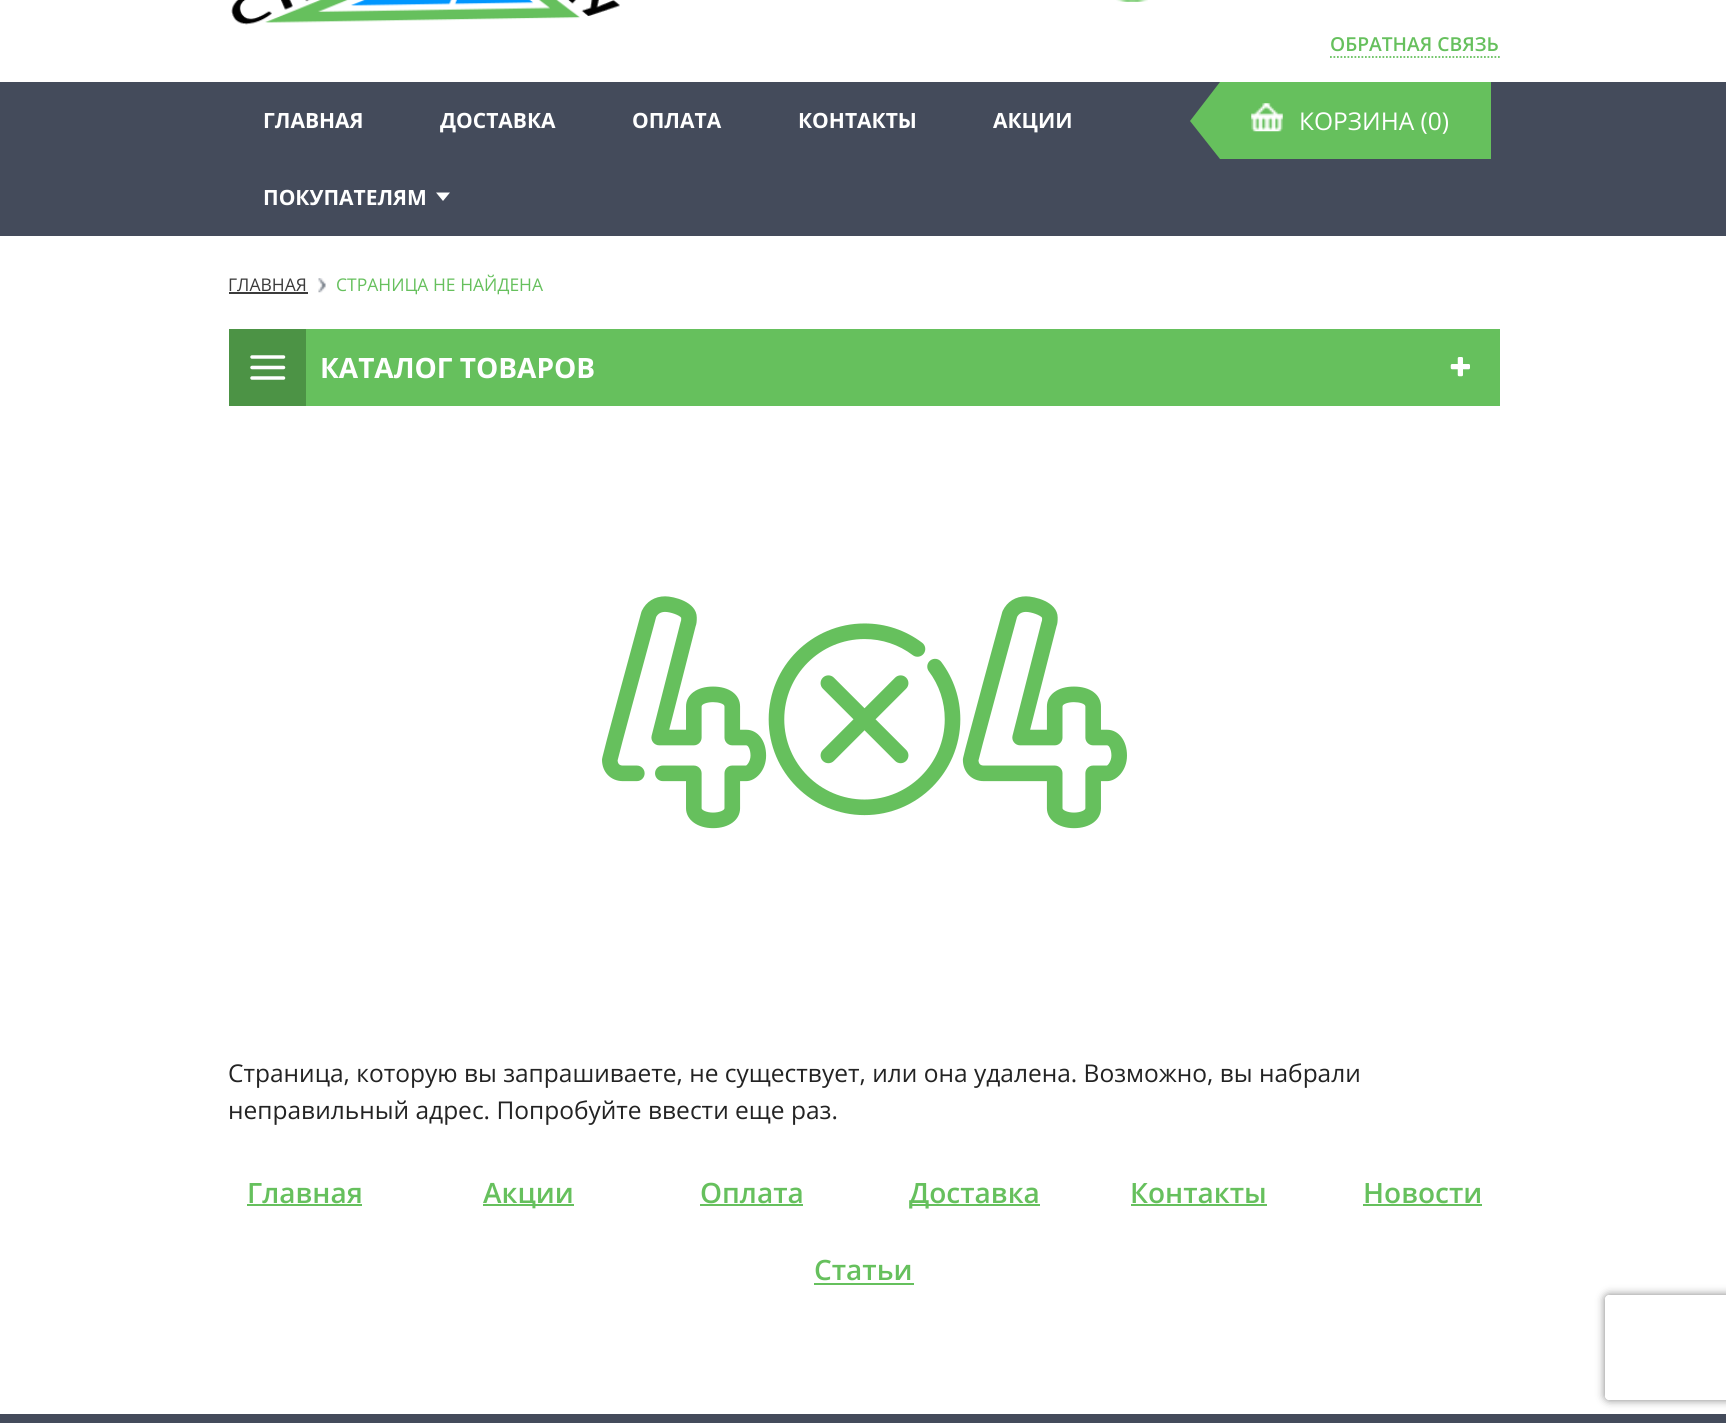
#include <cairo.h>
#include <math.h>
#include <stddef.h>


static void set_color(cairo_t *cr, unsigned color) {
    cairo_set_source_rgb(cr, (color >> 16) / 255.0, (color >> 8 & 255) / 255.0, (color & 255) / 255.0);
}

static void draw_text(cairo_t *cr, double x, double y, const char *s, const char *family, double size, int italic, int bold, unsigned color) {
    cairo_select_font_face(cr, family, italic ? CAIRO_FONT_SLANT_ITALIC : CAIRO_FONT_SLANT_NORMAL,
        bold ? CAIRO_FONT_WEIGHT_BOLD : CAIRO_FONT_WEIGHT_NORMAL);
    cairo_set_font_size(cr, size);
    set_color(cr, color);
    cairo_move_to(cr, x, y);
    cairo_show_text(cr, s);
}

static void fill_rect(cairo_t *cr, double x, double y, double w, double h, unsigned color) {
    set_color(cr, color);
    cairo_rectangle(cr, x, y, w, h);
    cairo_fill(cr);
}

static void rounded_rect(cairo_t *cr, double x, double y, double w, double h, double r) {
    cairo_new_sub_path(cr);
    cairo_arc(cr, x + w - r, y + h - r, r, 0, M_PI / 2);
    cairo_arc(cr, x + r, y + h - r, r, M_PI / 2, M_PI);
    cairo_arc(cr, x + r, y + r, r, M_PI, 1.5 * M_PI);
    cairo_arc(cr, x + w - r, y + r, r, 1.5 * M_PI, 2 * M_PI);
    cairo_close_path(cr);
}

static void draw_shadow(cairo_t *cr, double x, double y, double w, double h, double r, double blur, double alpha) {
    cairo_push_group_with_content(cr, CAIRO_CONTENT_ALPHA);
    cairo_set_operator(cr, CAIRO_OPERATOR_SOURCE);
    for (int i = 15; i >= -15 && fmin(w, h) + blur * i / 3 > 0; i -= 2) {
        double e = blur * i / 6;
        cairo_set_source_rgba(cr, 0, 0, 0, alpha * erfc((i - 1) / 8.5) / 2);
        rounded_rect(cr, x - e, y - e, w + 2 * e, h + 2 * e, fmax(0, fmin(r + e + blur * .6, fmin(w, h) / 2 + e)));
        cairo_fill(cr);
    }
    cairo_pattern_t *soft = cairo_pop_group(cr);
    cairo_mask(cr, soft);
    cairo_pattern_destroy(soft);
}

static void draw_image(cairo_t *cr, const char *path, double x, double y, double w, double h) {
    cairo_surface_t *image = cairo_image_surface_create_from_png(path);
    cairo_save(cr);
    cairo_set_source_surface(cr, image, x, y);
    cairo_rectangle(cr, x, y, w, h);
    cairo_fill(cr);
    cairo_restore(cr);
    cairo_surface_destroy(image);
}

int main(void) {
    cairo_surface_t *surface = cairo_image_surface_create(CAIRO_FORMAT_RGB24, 1726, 1423);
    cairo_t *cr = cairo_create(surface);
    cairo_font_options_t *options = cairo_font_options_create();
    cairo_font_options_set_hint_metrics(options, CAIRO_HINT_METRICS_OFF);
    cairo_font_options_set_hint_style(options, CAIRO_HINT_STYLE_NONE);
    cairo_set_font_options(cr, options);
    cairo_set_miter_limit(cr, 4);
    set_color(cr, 0xFFFFFF);
    cairo_paint(cr);
    draw_image(cr, "assets/img1.png", 231, 0, 389, 25);
    draw_image(cr, "assets/img2.png", 1116, 0, 32, 2);
    draw_text(cr, 1330, 51, "ОБРАТНАЯ СВЯЗЬ", "Open Sans SemiBold", 19.25, 0, 0, 0x66C05D);
    cairo_new_path(cr);
    cairo_move_to(cr, 1330, 57);
    cairo_line_to(cr, 1500, 57);
    cairo_set_line_width(cr, 1.8);
    cairo_set_dash(cr, (double[]){1.75, 1.75}, 2, 0);
    cairo_stroke(cr);
    fill_rect(cr, 0, 82, 1726, 154, 0x444B5B);
    draw_text(cr, 263, 128, "ГЛАВНАЯ", "Open Sans", 21, 0, 1, 0xFFFFFF);
    draw_text(cr, 440, 128, "ДОСТАВКА", "Open Sans", 21, 0, 1, 0xFFFFFF);
    draw_text(cr, 632, 128, "ОПЛАТА", "Open Sans", 21, 0, 1, 0xFFFFFF);
    draw_text(cr, 798, 128, "КОНТАКТЫ", "Open Sans", 21, 0, 1, 0xFFFFFF);
    draw_text(cr, 993, 128, "АКЦИИ", "Open Sans", 21, 0, 1, 0xFFFFFF);
    draw_text(cr, 263, 205, "ПОКУПАТЕЛЯМ", "Open Sans", 21, 0, 1, 0xFFFFFF);
    cairo_new_path(cr);
    cairo_move_to(cr, 436, 192.5);
    cairo_line_to(cr, 450, 192.5);
    cairo_line_to(cr, 443, 201);
    cairo_close_path(cr);
    cairo_fill(cr);
    fill_rect(cr, 1220, 82, 271, 77, 0x66C05D);
    cairo_new_path(cr);
    cairo_move_to(cr, 1220, 82);
    cairo_line_to(cr, 1220, 159);
    cairo_line_to(cr, 1190, 121);
    cairo_close_path(cr);
    cairo_fill(cr);
    draw_image(cr, "assets/img3.png", 1251, 103, 32, 29);
    draw_text(cr, 1299, 130, "КОРЗИНА (0)", "Open Sans", 24.5, 0, 0, 0xFFFFFF);
    draw_image(cr, "assets/img4.png", 318, 278, 8, 15);
    draw_text(cr, 228, 291, "ГЛАВНАЯ", "Open Sans", 17.5, 0, 0, 0x3B3B3B);
    fill_rect(cr, 229, 292, 79, 2, 0x3B3B3B);
    draw_text(cr, 336, 291, "СТРАНИЦА НЕ НАЙДЕНА", "Open Sans", 17.5, 0, 0, 0x66C05D);
    fill_rect(cr, 306, 329, 1194, 77, 0x66C05D);
    fill_rect(cr, 229, 329, 77, 77, 0x4C9345);
    draw_image(cr, "assets/img5.png", 250, 355, 36, 25);
    draw_text(cr, 320, 378, "КАТАЛОГ ТОВАРОВ", "Open Sans", 28, 0, 1, 0xFFFFFF);
    draw_image(cr, "assets/img6.png", 1450, 357, 20, 20);
    draw_image(cr, "assets/img7.png", 602, 596, 525, 233);
    draw_text(cr, 228, 1082, "Страница, которую вы запрашиваете, не существует, или она удалена. Возможно, вы набрали", "Open Sans", 24.5, 0, 0, 0x232323);
    draw_text(cr, 228, 1119, "неправильный адрес. Попробуйте ввести еще раз.", "Open Sans", 24.5, 0, 0, 0x232323);
    draw_text(cr, 247, 1203, "Главная", "Open Sans SemiBold", 28, 0, 0, 0x66C05D);
    fill_rect(cr, 247, 1204, 115, 2, 0x66C05D);
    fill_rect(cr, 483, 1204, 91, 2, 0x66C05D);
    draw_text(cr, 483, 1203, "Акции", "Open Sans SemiBold", 28, 0, 0, 0x66C05D);
    draw_text(cr, 700, 1203, "Оплата", "Open Sans SemiBold", 28, 0, 0, 0x66C05D);
    fill_rect(cr, 700, 1204, 103, 2, 0x66C05D);
    fill_rect(cr, 910, 1204, 130, 2, 0x66C05D);
    draw_text(cr, 909, 1203, "Доставка", "Open Sans SemiBold", 28, 0, 0, 0x66C05D);
    draw_text(cr, 1130, 1203, "Контакты", "Open Sans SemiBold", 28, 0, 0, 0x66C05D);
    fill_rect(cr, 1131, 1204, 136, 2, 0x66C05D);
    draw_text(cr, 1363, 1203, "Новости", "Open Sans SemiBold", 28, 0, 0, 0x66C05D);
    fill_rect(cr, 1363, 1204, 119, 2, 0x66C05D);
    draw_text(cr, 814, 1280, "Статьи", "Open Sans SemiBold", 28, 0, 0, 0x66C05D);
    fill_rect(cr, 814, 1283, 100, 2, 0x66C05D);
    fill_rect(cr, 0, 1414, 1726, 9, 0x444B5B);
    cairo_save(cr);
    cairo_set_fill_rule(cr, CAIRO_FILL_RULE_EVEN_ODD);
    cairo_new_path(cr);
    cairo_move_to(cr, 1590, 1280);
    cairo_line_to(cr, 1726, 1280);
    cairo_line_to(cr, 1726, 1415);
    cairo_line_to(cr, 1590, 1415);
    cairo_close_path(cr);
    cairo_move_to(cr, 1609, 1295);
    cairo_line_to(cr, 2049, 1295);
    cairo_curve_to(cr, 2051, 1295, 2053, 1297, 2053, 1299);
    cairo_line_to(cr, 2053, 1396);
    cairo_curve_to(cr, 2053, 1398, 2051, 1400, 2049, 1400);
    cairo_line_to(cr, 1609, 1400);
    cairo_curve_to(cr, 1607, 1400, 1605, 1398, 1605, 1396);
    cairo_line_to(cr, 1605, 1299);
    cairo_curve_to(cr, 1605, 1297, 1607, 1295, 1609, 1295);
    cairo_close_path(cr);
    cairo_clip(cr);
    set_color(cr, 0x808080);
    draw_shadow(cr, 1605, 1295, 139, 105, 4, 4.5, 1);
    cairo_restore(cr);
    cairo_surface_write_to_png(surface, "output.png");
    cairo_font_options_destroy(options);
    cairo_destroy(cr);
    cairo_surface_destroy(surface);
    return 0;
}
